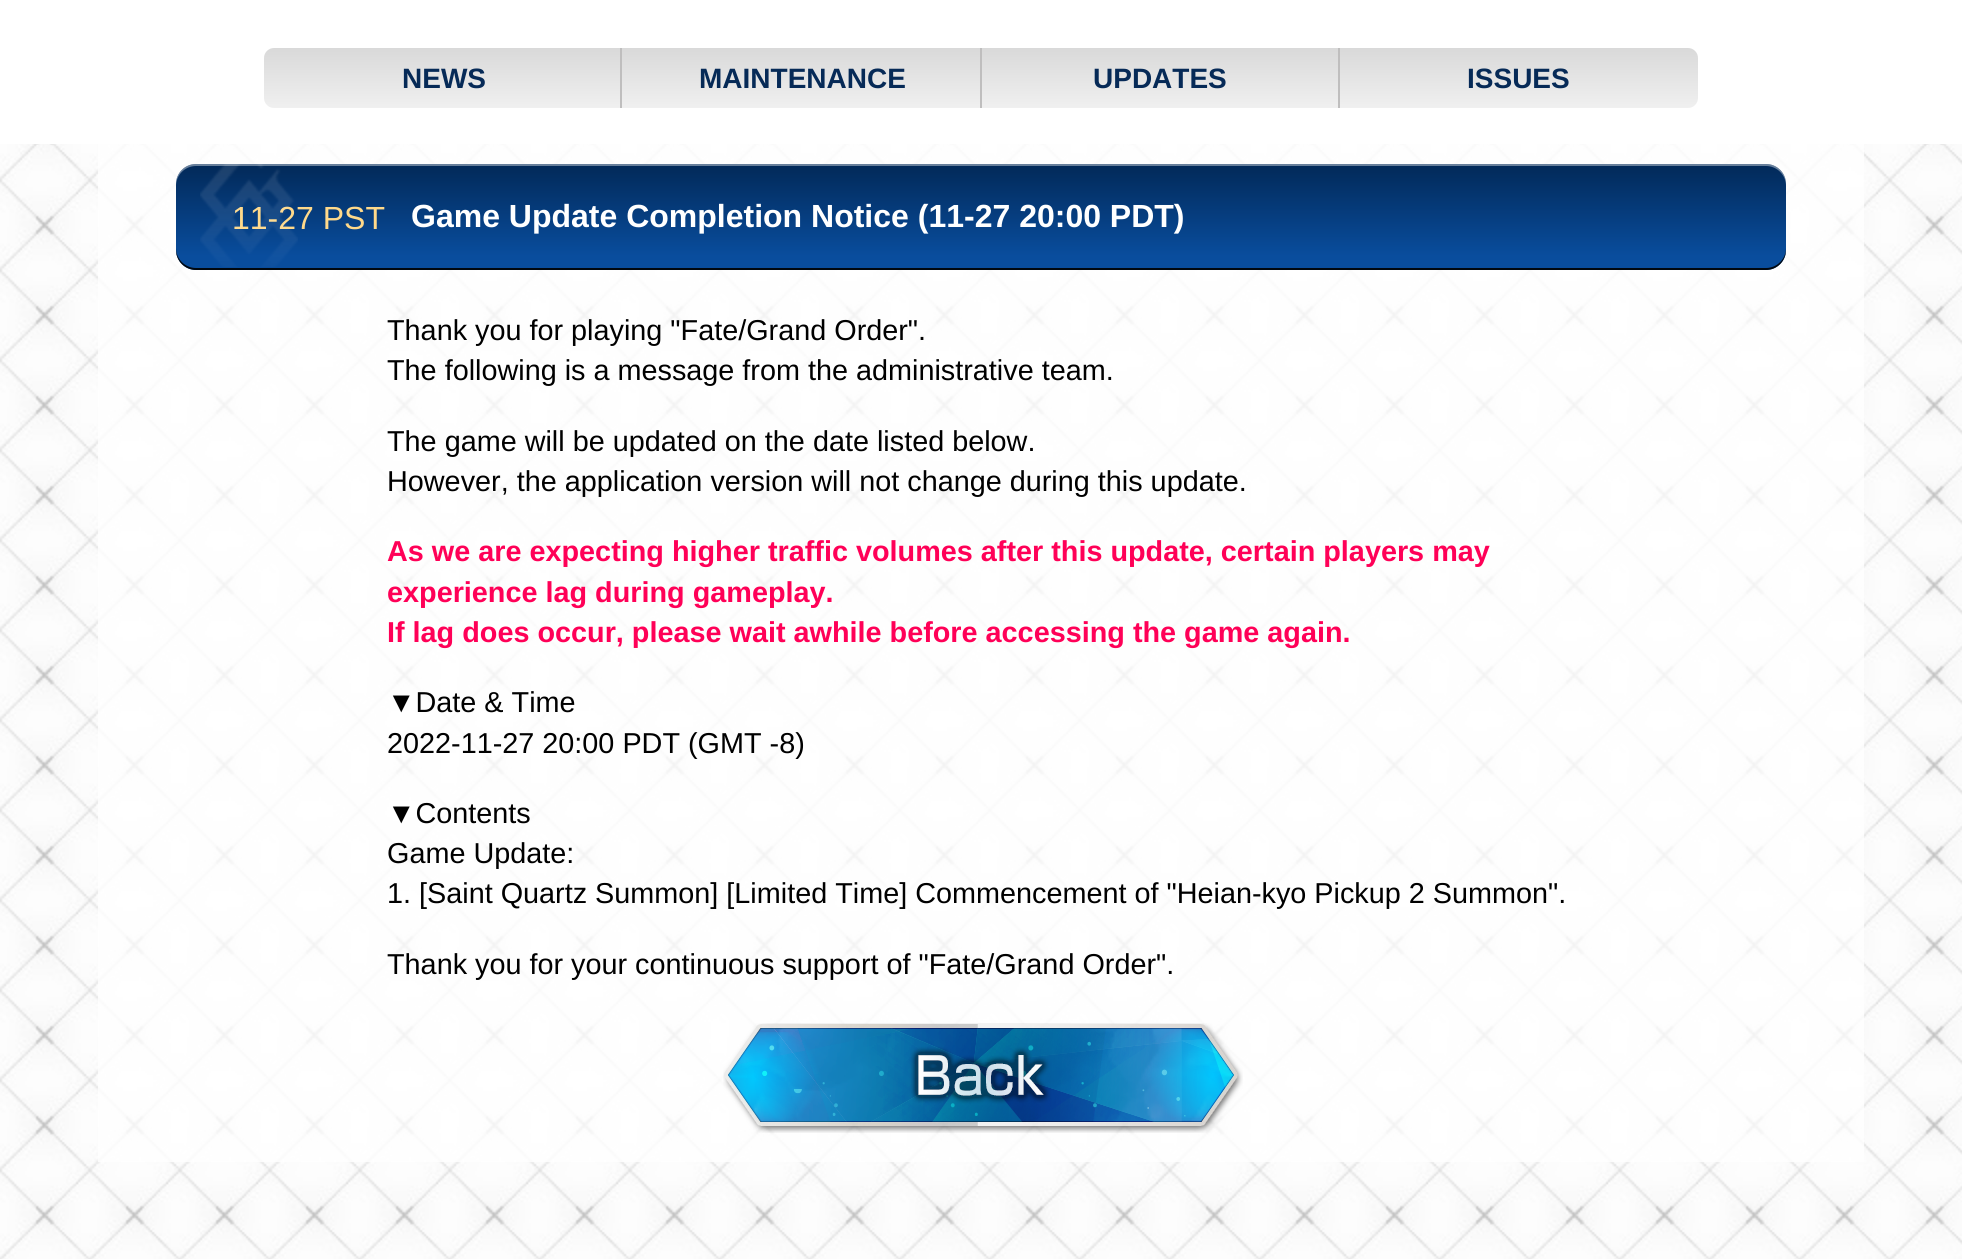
#include <cairo.h>
#include <math.h>
#include <stddef.h>


static void set_color(cairo_t *cr, unsigned color) {
    cairo_set_source_rgb(cr, (color >> 16) / 255.0, (color >> 8 & 255) / 255.0, (color & 255) / 255.0);
}

static void draw_text(cairo_t *cr, double x, double y, const char *s, const char *family, double size, int italic, int bold, unsigned color) {
    cairo_select_font_face(cr, family, italic ? CAIRO_FONT_SLANT_ITALIC : CAIRO_FONT_SLANT_NORMAL,
        bold ? CAIRO_FONT_WEIGHT_BOLD : CAIRO_FONT_WEIGHT_NORMAL);
    cairo_set_font_size(cr, size);
    set_color(cr, color);
    cairo_move_to(cr, x, y);
    cairo_show_text(cr, s);
}

static void fill_rect(cairo_t *cr, double x, double y, double w, double h, unsigned color) {
    set_color(cr, color);
    cairo_rectangle(cr, x, y, w, h);
    cairo_fill(cr);
}

static void rounded_rect(cairo_t *cr, double x, double y, double w, double h, double r) {
    cairo_new_sub_path(cr);
    cairo_arc(cr, x + w - r, y + h - r, r, 0, M_PI / 2);
    cairo_arc(cr, x + r, y + h - r, r, M_PI / 2, M_PI);
    cairo_arc(cr, x + r, y + r, r, M_PI, 1.5 * M_PI);
    cairo_arc(cr, x + w - r, y + r, r, 1.5 * M_PI, 2 * M_PI);
    cairo_close_path(cr);
}

static void draw_image(cairo_t *cr, const char *path, double x, double y, double w, double h) {
    cairo_surface_t *image = cairo_image_surface_create_from_png(path);
    cairo_save(cr);
    cairo_set_source_surface(cr, image, x, y);
    cairo_rectangle(cr, x, y, w, h);
    cairo_fill(cr);
    cairo_restore(cr);
    cairo_surface_destroy(image);
}

int main(void) {
    cairo_surface_t *surface = cairo_image_surface_create(CAIRO_FORMAT_RGB24, 1962, 1259);
    cairo_t *cr = cairo_create(surface);
    cairo_font_options_t *options = cairo_font_options_create();
    cairo_font_options_set_hint_metrics(options, CAIRO_HINT_METRICS_OFF);
    cairo_font_options_set_hint_style(options, CAIRO_HINT_STYLE_NONE);
    cairo_set_font_options(cr, options);
    cairo_set_miter_limit(cr, 4);
    cairo_pattern_t *gradient;
    set_color(cr, 0xFFFFFF);
    cairo_paint(cr);
    draw_image(cr, "assets/img1.png", 0, 144, 1962, 1115);
    gradient = cairo_pattern_create_linear(443, 48, 443, 108);
    cairo_pattern_add_color_stop_rgba(gradient, 0, 0.851, 0.851, 0.851, 1);
    cairo_pattern_add_color_stop_rgba(gradient, 1, 0.941, 0.941, 0.941, 1);
    cairo_set_source(cr, gradient);
    cairo_pattern_destroy(gradient);
    cairo_new_path(cr);
    cairo_move_to(cr, 274, 48);
    cairo_line_to(cr, 624, 48);
    cairo_line_to(cr, 624, 108);
    cairo_line_to(cr, 274, 108);
    cairo_curve_to(cr, 268.5, 108, 264, 103.5, 264, 98);
    cairo_line_to(cr, 264, 58);
    cairo_curve_to(cr, 264, 52.5, 268.5, 48, 274, 48);
    cairo_close_path(cr);
    cairo_fill(cr);
    fill_rect(cr, 620, 48, 2, 60, 0xBFBEBE);
    draw_text(cr, 402, 88, "NEWS", "Liberation Sans", 28, 0, 1, 0x062A57);
    gradient = cairo_pattern_create_linear(802, 48, 802, 108);
    cairo_pattern_add_color_stop_rgba(gradient, 0, 0.851, 0.851, 0.851, 1);
    cairo_pattern_add_color_stop_rgba(gradient, 1, 0.941, 0.941, 0.941, 1);
    cairo_set_source(cr, gradient);
    cairo_pattern_destroy(gradient);
    cairo_rectangle(cr, 624, 48, 356, 60);
    cairo_fill(cr);
    fill_rect(cr, 980, 48, 2, 60, 0xBFBEBE);
    draw_text(cr, 699, 88, "MAINTENANCE", "Liberation Sans", 28, 0, 1, 0x062A57);
    gradient = cairo_pattern_create_linear(1161, 48, 1161, 108);
    cairo_pattern_add_color_stop_rgba(gradient, 0, 0.851, 0.851, 0.851, 1);
    cairo_pattern_add_color_stop_rgba(gradient, 1, 0.941, 0.941, 0.941, 1);
    cairo_set_source(cr, gradient);
    cairo_pattern_destroy(gradient);
    cairo_rectangle(cr, 982, 48, 356, 60);
    cairo_fill(cr);
    fill_rect(cr, 1338, 48, 2, 60, 0xBFBEBE);
    draw_text(cr, 1093, 88, "UPDATES", "Liberation Sans", 28, 0, 1, 0x062A57);
    gradient = cairo_pattern_create_linear(1519, 48, 1519, 108);
    cairo_pattern_add_color_stop_rgba(gradient, 0, 0.851, 0.851, 0.851, 1);
    cairo_pattern_add_color_stop_rgba(gradient, 1, 0.941, 0.941, 0.941, 1);
    cairo_set_source(cr, gradient);
    cairo_pattern_destroy(gradient);
    cairo_new_path(cr);
    cairo_move_to(cr, 1340, 48);
    cairo_line_to(cr, 1688, 48);
    cairo_curve_to(cr, 1693.5, 48, 1698, 52.5, 1698, 58);
    cairo_line_to(cr, 1698, 98);
    cairo_curve_to(cr, 1698, 103.5, 1693.5, 108, 1688, 108);
    cairo_line_to(cr, 1340, 108);
    cairo_close_path(cr);
    cairo_fill(cr);
    draw_text(cr, 1467, 88, "ISSUES", "Liberation Sans", 28, 0, 1, 0x062A57);
    cairo_set_source_rgba(cr, 1, 1, 1, 0.8);
    cairo_rectangle(cr, 98, 144, 1766, 1018);
    cairo_fill(cr);
    gradient = cairo_pattern_create_linear(981, 164, 981, 270);
    cairo_pattern_add_color_stop_rgba(gradient, 0, 0.008, 0.161, 0.345, 1);
    cairo_pattern_add_color_stop_rgba(gradient, 0.87, 0.035, 0.302, 0.616, 1);
    cairo_pattern_add_color_stop_rgba(gradient, 1, 0.035, 0.302, 0.616, 1);
    cairo_set_source(cr, gradient);
    cairo_pattern_destroy(gradient);
    rounded_rect(cr, 176, 164, 1610, 106, 20);
    cairo_fill(cr);
    cairo_set_source_rgba(cr, 1, 1, 1, 0.4);
    cairo_new_path(cr);
    cairo_move_to(cr, 196, 166);
    cairo_line_to(cr, 1766, 166);
    cairo_curve_to(cr, 1777, 166, 1786, 175, 1786, 186);
    cairo_line_to(cr, 1786, 184);
    cairo_curve_to(cr, 1786, 173, 1777, 164, 1766, 164);
    cairo_line_to(cr, 196, 164);
    cairo_curve_to(cr, 185, 164, 176, 173, 176, 184);
    cairo_line_to(cr, 176, 186);
    cairo_curve_to(cr, 176, 175, 185, 166, 196, 166);
    cairo_close_path(cr);
    cairo_fill(cr);
    cairo_set_source_rgba(cr, 0, 0, 0, 0.9);
    cairo_new_path(cr);
    cairo_move_to(cr, 176, 248);
    cairo_line_to(cr, 176, 250);
    cairo_curve_to(cr, 176, 261, 185, 270, 196, 270);
    cairo_line_to(cr, 1766, 270);
    cairo_curve_to(cr, 1777, 270, 1786, 261, 1786, 250);
    cairo_line_to(cr, 1786, 248);
    cairo_curve_to(cr, 1786, 259, 1777, 268, 1766, 268);
    cairo_line_to(cr, 196, 268);
    cairo_curve_to(cr, 185, 268, 176, 259, 176, 248);
    cairo_close_path(cr);
    cairo_fill(cr);
    draw_text(cr, 232, 229, "11-27 PST", "Liberation Sans", 32, 0, 0, 0xFFD98A);
    draw_image(cr, "assets/img2.png", 200, 164, 98, 103);
    draw_text(cr, 411, 227, "Game Update Completion Notice (11-27 20:00 PDT)", "Liberation Sans", 32, 0, 1, 0xFFFFFF);
    draw_text(cr, 387, 340, "Thank you for playing \"Fate/Grand Order\".", "Liberation Sans", 28.8, 0, 0, 0x000000);
    draw_text(cr, 387, 380, "The following is a message from the administrative team.", "Liberation Sans", 28.8, 0, 0, 0x000000);
    draw_text(cr, 387, 451, "The game will be updated on the date listed below.", "Liberation Sans", 28.8, 0, 0, 0x000000);
    draw_text(cr, 387, 491, "However, the application version will not change during this update.", "Liberation Sans", 28.8, 0, 0, 0x000000);
    draw_text(cr, 387, 561, "As we are expecting higher traffic volumes after this update, certain players may", "Liberation Sans", 28.8, 0, 1, 0xFF0057);
    draw_text(cr, 387, 602, "experience lag during gameplay.", "Liberation Sans", 28.8, 0, 1, 0xFF0057);
    draw_text(cr, 387, 642, "If lag does occur, please wait awhile before accessing the game again.", "Liberation Sans", 28.8, 0, 1, 0xFF0057);
    draw_text(cr, 387, 712, "▼Date & Time", "Liberation Sans", 28.8, 0, 0, 0x000000);
    draw_text(cr, 387, 753, "2022-11-27 20:00 PDT (GMT -8)", "Liberation Sans", 28.8, 0, 0, 0x000000);
    draw_text(cr, 387, 823, "▼Contents", "Liberation Sans", 28.8, 0, 0, 0x000000);
    draw_text(cr, 387, 863, "Game Update:", "Liberation Sans", 28.8, 0, 0, 0x000000);
    draw_text(cr, 387, 903, "1. [Saint Quartz Summon] [Limited Time] Commencement of \"Heian-kyo Pickup 2 Summon\".", "Liberation Sans", 28.8, 0, 0, 0x000000);
    draw_text(cr, 387, 974, "Thank you for your continuous support of \"Fate/Grand Order\".", "Liberation Sans", 28.8, 0, 0, 0x000000);
    draw_image(cr, "assets/img3.png", 723, 1023, 520, 110);
    cairo_surface_write_to_png(surface, "output.png");
    cairo_font_options_destroy(options);
    cairo_destroy(cr);
    cairo_surface_destroy(surface);
    return 0;
}
